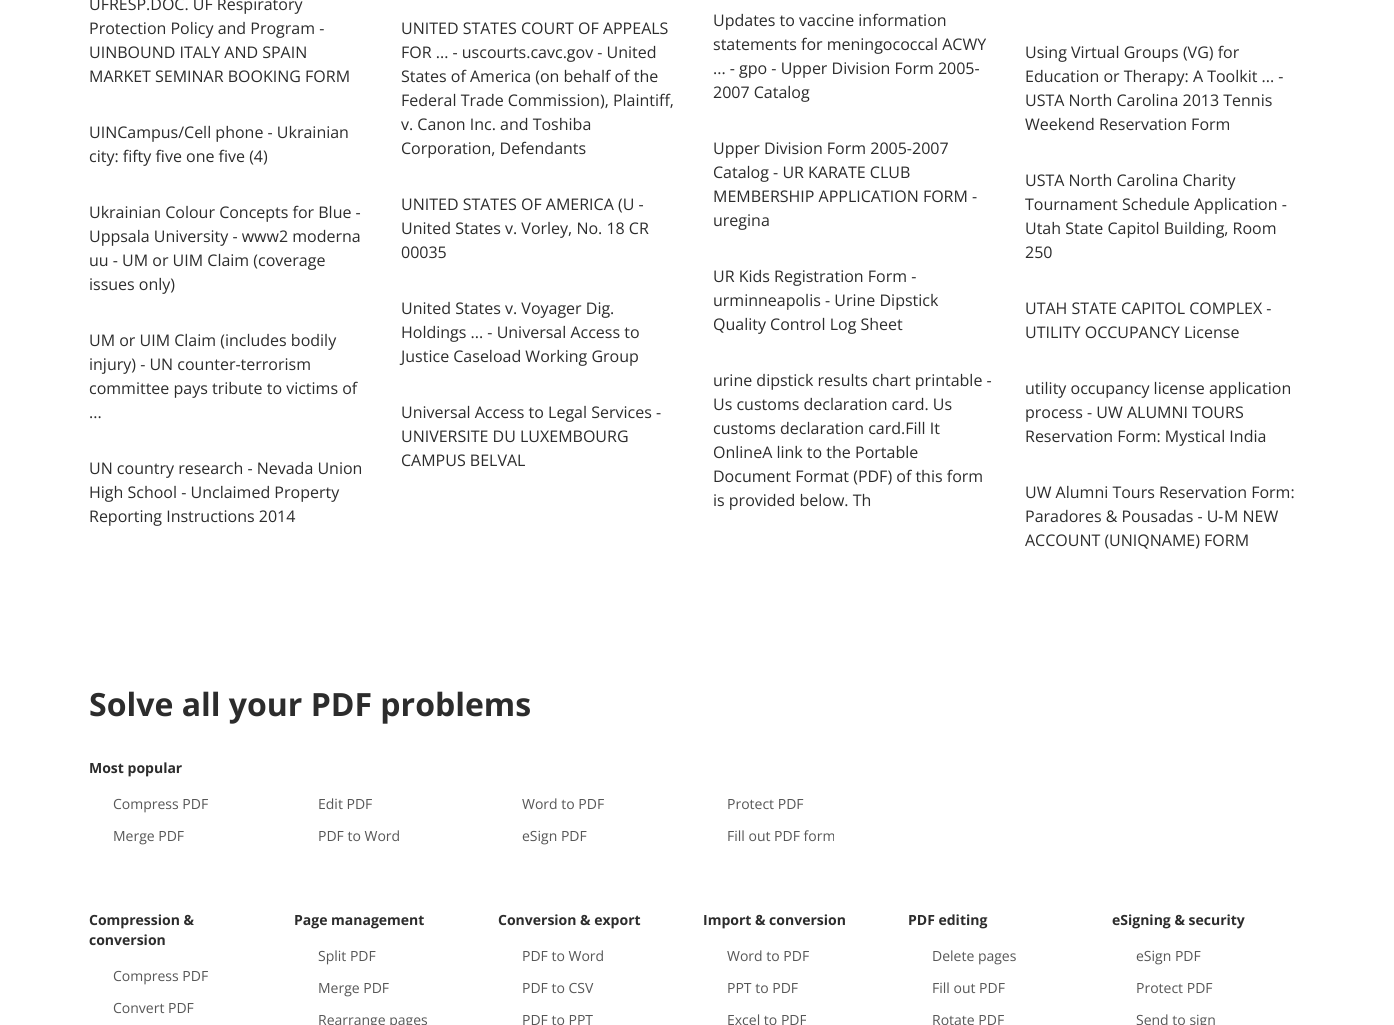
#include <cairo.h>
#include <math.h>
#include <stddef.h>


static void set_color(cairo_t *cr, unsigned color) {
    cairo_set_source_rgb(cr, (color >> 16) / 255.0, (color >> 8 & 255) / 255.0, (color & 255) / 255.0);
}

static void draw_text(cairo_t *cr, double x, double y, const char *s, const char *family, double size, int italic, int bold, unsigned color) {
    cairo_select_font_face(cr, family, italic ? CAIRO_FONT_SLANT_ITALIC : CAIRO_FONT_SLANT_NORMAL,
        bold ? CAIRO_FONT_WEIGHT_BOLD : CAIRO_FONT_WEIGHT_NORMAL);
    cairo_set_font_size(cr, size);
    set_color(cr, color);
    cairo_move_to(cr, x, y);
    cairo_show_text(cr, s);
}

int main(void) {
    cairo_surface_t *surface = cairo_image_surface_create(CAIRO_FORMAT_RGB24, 1394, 1025);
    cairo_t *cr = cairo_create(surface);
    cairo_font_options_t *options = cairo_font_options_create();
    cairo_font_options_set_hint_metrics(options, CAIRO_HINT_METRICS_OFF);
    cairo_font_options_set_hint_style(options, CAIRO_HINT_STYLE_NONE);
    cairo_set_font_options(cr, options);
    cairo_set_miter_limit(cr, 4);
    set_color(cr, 0xFFFFFF);
    cairo_paint(cr);
    draw_text(cr, 89, 10, "UFRESP.DOC. UF Respiratory", "Open Sans", 16, 0, 0, 0x2C2C2C);
    draw_text(cr, 89, 34, "Protection Policy and Program -", "Open Sans", 16, 0, 0, 0x2C2C2C);
    draw_text(cr, 89, 58, "UINBOUND ITALY AND SPAIN", "Open Sans", 16, 0, 0, 0x2C2C2C);
    draw_text(cr, 89, 82, "MARKET SEMINAR BOOKING FORM", "Open Sans", 16, 0, 0, 0x2C2C2C);
    draw_text(cr, 89, 138, "UINCampus/Cell phone - Ukrainian", "Open Sans", 16, 0, 0, 0x2C2C2C);
    draw_text(cr, 89, 162, "city: fifty five one five (4)", "Open Sans", 16, 0, 0, 0x2C2C2C);
    draw_text(cr, 89, 218, "Ukrainian Colour Concepts for Blue -", "Open Sans", 16, 0, 0, 0x2C2C2C);
    draw_text(cr, 89, 242, "Uppsala University - www2 moderna", "Open Sans", 16, 0, 0, 0x2C2C2C);
    draw_text(cr, 89, 266, "uu - UM or UIM Claim (coverage", "Open Sans", 16, 0, 0, 0x2C2C2C);
    draw_text(cr, 89, 290, "issues only)", "Open Sans", 16, 0, 0, 0x2C2C2C);
    draw_text(cr, 89, 346, "UM or UIM Claim (includes bodily", "Open Sans", 16, 0, 0, 0x2C2C2C);
    draw_text(cr, 89, 370, "injury) - UN counter-terrorism", "Open Sans", 16, 0, 0, 0x2C2C2C);
    draw_text(cr, 89, 394, "committee pays tribute to victims of", "Open Sans", 16, 0, 0, 0x2C2C2C);
    draw_text(cr, 89, 418, "...", "Open Sans", 16, 0, 0, 0x2C2C2C);
    draw_text(cr, 89, 474, "UN country research - Nevada Union", "Open Sans", 16, 0, 0, 0x2C2C2C);
    draw_text(cr, 89, 498, "High School - Unclaimed Property", "Open Sans", 16, 0, 0, 0x2C2C2C);
    draw_text(cr, 89, 522, "Reporting Instructions 2014", "Open Sans", 16, 0, 0, 0x2C2C2C);
    draw_text(cr, 401, 34, "UNITED STATES COURT OF APPEALS", "Open Sans", 16, 0, 0, 0x2C2C2C);
    draw_text(cr, 401, 58, "FOR ... - uscourts.cavc.gov - United", "Open Sans", 16, 0, 0, 0x2C2C2C);
    draw_text(cr, 401, 82, "States of America (on behalf of the", "Open Sans", 16, 0, 0, 0x2C2C2C);
    draw_text(cr, 401, 106, "Federal Trade Commission), Plaintiff,", "Open Sans", 16, 0, 0, 0x2C2C2C);
    draw_text(cr, 401, 130, "v. Canon Inc. and Toshiba", "Open Sans", 16, 0, 0, 0x2C2C2C);
    draw_text(cr, 401, 154, "Corporation, Defendants", "Open Sans", 16, 0, 0, 0x2C2C2C);
    draw_text(cr, 401, 210, "UNITED STATES OF AMERICA (U -", "Open Sans", 16, 0, 0, 0x2C2C2C);
    draw_text(cr, 401, 234, "United States v. Vorley, No. 18 CR", "Open Sans", 16, 0, 0, 0x2C2C2C);
    draw_text(cr, 401, 258, "00035", "Open Sans", 16, 0, 0, 0x2C2C2C);
    draw_text(cr, 401, 314, "United States v. Voyager Dig.", "Open Sans", 16, 0, 0, 0x2C2C2C);
    draw_text(cr, 401, 338, "Holdings ... - Universal Access to", "Open Sans", 16, 0, 0, 0x2C2C2C);
    draw_text(cr, 401, 362, "Justice Caseload Working Group", "Open Sans", 16, 0, 0, 0x2C2C2C);
    draw_text(cr, 401, 418, "Universal Access to Legal Services -", "Open Sans", 16, 0, 0, 0x2C2C2C);
    draw_text(cr, 401, 442, "UNIVERSITE DU LUXEMBOURG", "Open Sans", 16, 0, 0, 0x2C2C2C);
    draw_text(cr, 401, 466, "CAMPUS BELVAL", "Open Sans", 16, 0, 0, 0x2C2C2C);
    draw_text(cr, 713, 26, "Updates to vaccine information", "Open Sans", 16, 0, 0, 0x2C2C2C);
    draw_text(cr, 713, 50, "statements for meningococcal ACWY", "Open Sans", 16, 0, 0, 0x2C2C2C);
    draw_text(cr, 713, 74, "... - gpo - Upper Division Form 2005-", "Open Sans", 16, 0, 0, 0x2C2C2C);
    draw_text(cr, 713, 98, "2007 Catalog", "Open Sans", 16, 0, 0, 0x2C2C2C);
    draw_text(cr, 713, 154, "Upper Division Form 2005-2007", "Open Sans", 16, 0, 0, 0x2C2C2C);
    draw_text(cr, 713, 178, "Catalog - UR KARATE CLUB", "Open Sans", 16, 0, 0, 0x2C2C2C);
    draw_text(cr, 713, 202, "MEMBERSHIP APPLICATION FORM -", "Open Sans", 16, 0, 0, 0x2C2C2C);
    draw_text(cr, 713, 226, "uregina", "Open Sans", 16, 0, 0, 0x2C2C2C);
    draw_text(cr, 713, 282, "UR Kids Registration Form -", "Open Sans", 16, 0, 0, 0x2C2C2C);
    draw_text(cr, 713, 306, "urminneapolis - Urine Dipstick", "Open Sans", 16, 0, 0, 0x2C2C2C);
    draw_text(cr, 713, 330, "Quality Control Log Sheet", "Open Sans", 16, 0, 0, 0x2C2C2C);
    draw_text(cr, 713, 386, "urine dipstick results chart printable -", "Open Sans", 16, 0, 0, 0x2C2C2C);
    draw_text(cr, 713, 410, "Us customs declaration card. Us", "Open Sans", 16, 0, 0, 0x2C2C2C);
    draw_text(cr, 713, 434, "customs declaration card.Fill It", "Open Sans", 16, 0, 0, 0x2C2C2C);
    draw_text(cr, 713, 458, "OnlineA link to the Portable", "Open Sans", 16, 0, 0, 0x2C2C2C);
    draw_text(cr, 713, 482, "Document Format (PDF) of this form", "Open Sans", 16, 0, 0, 0x2C2C2C);
    draw_text(cr, 713, 506, "is provided below. Th", "Open Sans", 16, 0, 0, 0x2C2C2C);
    draw_text(cr, 1025, 58, "Using Virtual Groups (VG) for", "Open Sans", 16, 0, 0, 0x2C2C2C);
    draw_text(cr, 1025, 82, "Education or Therapy: A Toolkit ... -", "Open Sans", 16, 0, 0, 0x2C2C2C);
    draw_text(cr, 1025, 106, "USTA North Carolina 2013 Tennis", "Open Sans", 16, 0, 0, 0x2C2C2C);
    draw_text(cr, 1025, 130, "Weekend Reservation Form", "Open Sans", 16, 0, 0, 0x2C2C2C);
    draw_text(cr, 1025, 186, "USTA North Carolina Charity", "Open Sans", 16, 0, 0, 0x2C2C2C);
    draw_text(cr, 1025, 210, "Tournament Schedule Application -", "Open Sans", 16, 0, 0, 0x2C2C2C);
    draw_text(cr, 1025, 234, "Utah State Capitol Building, Room", "Open Sans", 16, 0, 0, 0x2C2C2C);
    draw_text(cr, 1025, 258, "250", "Open Sans", 16, 0, 0, 0x2C2C2C);
    draw_text(cr, 1025, 314, "UTAH STATE CAPITOL COMPLEX -", "Open Sans", 16, 0, 0, 0x2C2C2C);
    draw_text(cr, 1025, 338, "UTILITY OCCUPANCY License", "Open Sans", 16, 0, 0, 0x2C2C2C);
    draw_text(cr, 1025, 394, "utility occupancy license application", "Open Sans", 16, 0, 0, 0x2C2C2C);
    draw_text(cr, 1025, 418, "process - UW ALUMNI TOURS", "Open Sans", 16, 0, 0, 0x2C2C2C);
    draw_text(cr, 1025, 442, "Reservation Form: Mystical India", "Open Sans", 16, 0, 0, 0x2C2C2C);
    draw_text(cr, 1025, 498, "UW Alumni Tours Reservation Form:", "Open Sans", 16, 0, 0, 0x2C2C2C);
    draw_text(cr, 1025, 522, "Paradores & Pousadas - U", "Open Sans", 16, 0, 0, 0x2C2C2C);
    draw_text(cr, 1218, 522, "‐", "Liberation Sans", 16, 0, 0, 0x2C2C2C);
    draw_text(cr, 1224, 522, "M NEW", "Open Sans", 16, 0, 0, 0x2C2C2C);
    draw_text(cr, 1025, 546, "ACCOUNT (UNIQNAME) FORM", "Open Sans", 16, 0, 0, 0x2C2C2C);
    draw_text(cr, 89, 716, "Solve all your PDF problems", "Open Sans", 32, 0, 1, 0x2C2C2C);
    draw_text(cr, 89, 773, "Most popular", "Open Sans", 14, 0, 1, 0x2C2C2C);
    draw_text(cr, 113, 809, "Compress PDF", "Open Sans", 14, 0, 0, 0x565656);
    draw_text(cr, 318, 809, "Edit PDF", "Open Sans", 14, 0, 0, 0x565656);
    draw_text(cr, 522, 809, "Word to PDF", "Open Sans", 14, 0, 0, 0x565656);
    draw_text(cr, 727, 809, "Protect PDF", "Open Sans", 14, 0, 0, 0x565656);
    draw_text(cr, 113, 841, "Merge PDF", "Open Sans", 14, 0, 0, 0x565656);
    draw_text(cr, 318, 841, "PDF to Word", "Open Sans", 14, 0, 0, 0x565656);
    draw_text(cr, 522, 841, "eSign PDF", "Open Sans", 14, 0, 0, 0x565656);
    draw_text(cr, 727, 841, "Fill out PDF form", "Open Sans", 14, 0, 0, 0x565656);
    draw_text(cr, 89, 925, "Compression &", "Open Sans", 14, 0, 1, 0x2C2C2C);
    draw_text(cr, 89, 945, "conversion", "Open Sans", 14, 0, 1, 0x2C2C2C);
    draw_text(cr, 113, 981, "Compress PDF", "Open Sans", 14, 0, 0, 0x565656);
    draw_text(cr, 113, 1013, "Convert PDF", "Open Sans", 14, 0, 0, 0x565656);
    draw_text(cr, 294, 925, "Page management", "Open Sans", 14, 0, 1, 0x2C2C2C);
    draw_text(cr, 318, 961, "Split PDF", "Open Sans", 14, 0, 0, 0x565656);
    draw_text(cr, 318, 993, "Merge PDF", "Open Sans", 14, 0, 0, 0x565656);
    draw_text(cr, 318, 1025, "Rearrange pages", "Open Sans", 14, 0, 0, 0x565656);
    draw_text(cr, 498, 925, "Conversion & export", "Open Sans", 14, 0, 1, 0x2C2C2C);
    draw_text(cr, 522, 961, "PDF to Word", "Open Sans", 14, 0, 0, 0x565656);
    draw_text(cr, 522, 993, "PDF to CSV", "Open Sans", 14, 0, 0, 0x565656);
    draw_text(cr, 522, 1025, "PDF to PPT", "Open Sans", 14, 0, 0, 0x565656);
    draw_text(cr, 703, 925, "Import & conversion", "Open Sans", 14, 0, 1, 0x2C2C2C);
    draw_text(cr, 727, 961, "Word to PDF", "Open Sans", 14, 0, 0, 0x565656);
    draw_text(cr, 727, 993, "PPT to PDF", "Open Sans", 14, 0, 0, 0x565656);
    draw_text(cr, 727, 1025, "Excel to PDF", "Open Sans", 14, 0, 0, 0x565656);
    draw_text(cr, 908, 925, "PDF editing", "Open Sans", 14, 0, 1, 0x2C2C2C);
    draw_text(cr, 932, 961, "Delete pages", "Open Sans", 14, 0, 0, 0x565656);
    draw_text(cr, 932, 993, "Fill out PDF", "Open Sans", 14, 0, 0, 0x565656);
    draw_text(cr, 932, 1025, "Rotate PDF", "Open Sans", 14, 0, 0, 0x565656);
    draw_text(cr, 1112, 925, "eSigning & security", "Open Sans", 14, 0, 1, 0x2C2C2C);
    draw_text(cr, 1136, 961, "eSign PDF", "Open Sans", 14, 0, 0, 0x565656);
    draw_text(cr, 1136, 993, "Protect PDF", "Open Sans", 14, 0, 0, 0x565656);
    draw_text(cr, 1136, 1025, "Send to sign", "Open Sans", 14, 0, 0, 0x565656);
    cairo_surface_write_to_png(surface, "output.png");
    cairo_font_options_destroy(options);
    cairo_destroy(cr);
    cairo_surface_destroy(surface);
    return 0;
}
